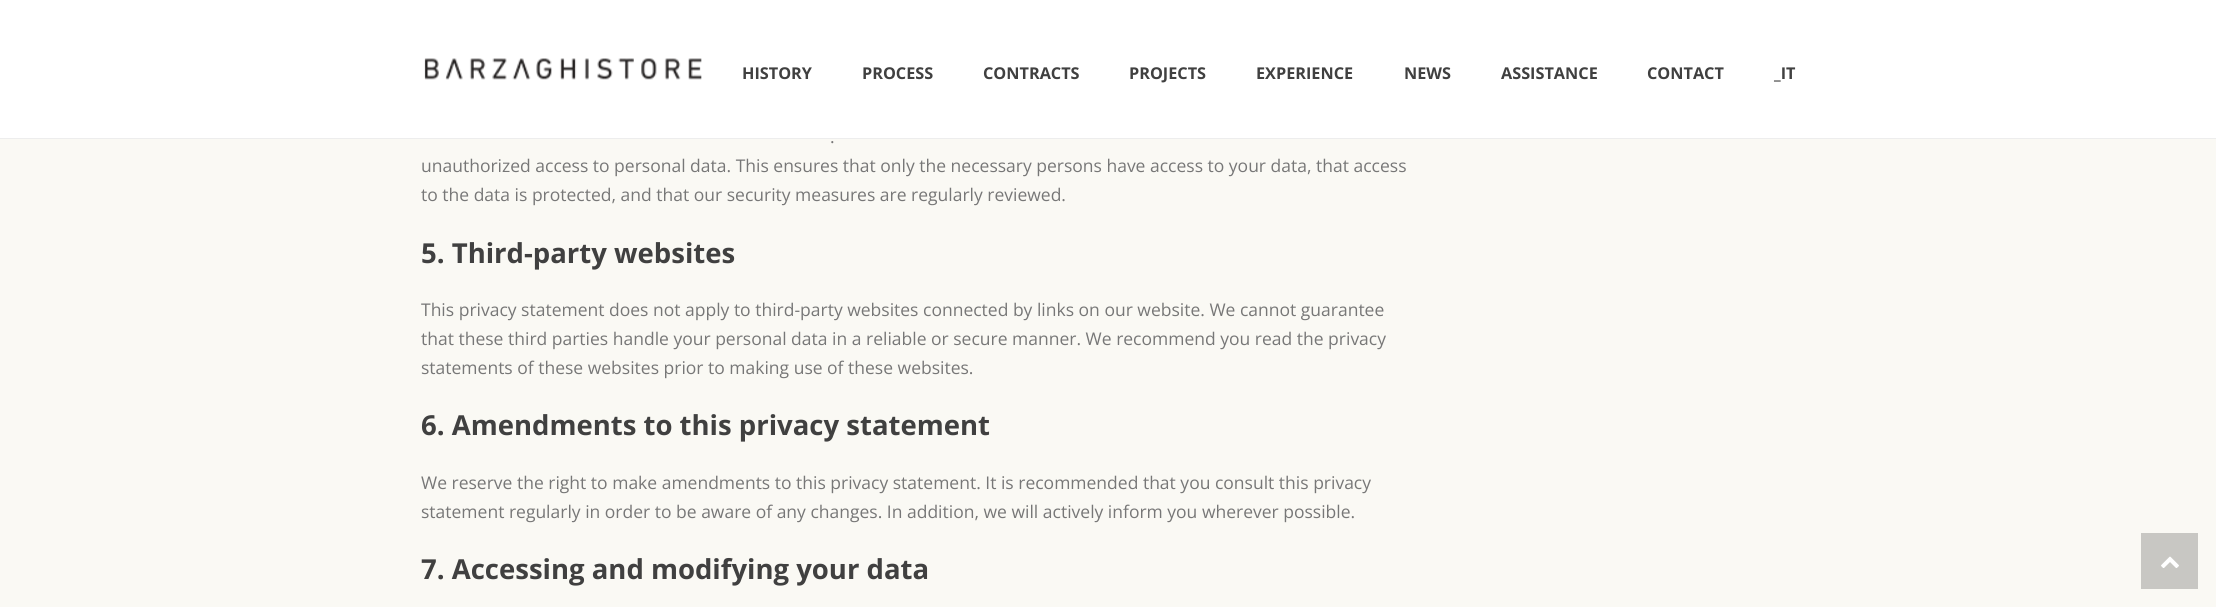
#include <cairo.h>
#include <math.h>
#include <stddef.h>


static void set_color(cairo_t *cr, unsigned color) {
    cairo_set_source_rgb(cr, (color >> 16) / 255.0, (color >> 8 & 255) / 255.0, (color & 255) / 255.0);
}

static void draw_text(cairo_t *cr, double x, double y, const char *s, const char *family, double size, int italic, int bold, unsigned color) {
    cairo_select_font_face(cr, family, italic ? CAIRO_FONT_SLANT_ITALIC : CAIRO_FONT_SLANT_NORMAL,
        bold ? CAIRO_FONT_WEIGHT_BOLD : CAIRO_FONT_WEIGHT_NORMAL);
    cairo_set_font_size(cr, size);
    set_color(cr, color);
    cairo_move_to(cr, x, y);
    cairo_show_text(cr, s);
}

static void fill_rect(cairo_t *cr, double x, double y, double w, double h, unsigned color) {
    set_color(cr, color);
    cairo_rectangle(cr, x, y, w, h);
    cairo_fill(cr);
}

static void draw_image(cairo_t *cr, const char *path, double x, double y, double w, double h) {
    cairo_surface_t *image = cairo_image_surface_create_from_png(path);
    cairo_save(cr);
    cairo_set_source_surface(cr, image, x, y);
    cairo_rectangle(cr, x, y, w, h);
    cairo_fill(cr);
    cairo_restore(cr);
    cairo_surface_destroy(image);
}

int main(void) {
    cairo_surface_t *surface = cairo_image_surface_create(CAIRO_FORMAT_RGB24, 2216, 607);
    cairo_t *cr = cairo_create(surface);
    cairo_font_options_t *options = cairo_font_options_create();
    cairo_font_options_set_hint_metrics(options, CAIRO_HINT_METRICS_OFF);
    cairo_font_options_set_hint_style(options, CAIRO_HINT_STYLE_NONE);
    cairo_set_font_options(cr, options);
    cairo_set_miter_limit(cr, 4);
    set_color(cr, 0xFAF9F4);
    cairo_paint(cr);
    fill_rect(cr, 0, 138, 2216, 1, 0xEDEDED);
    fill_rect(cr, 0, 0, 2216, 138, 0xFFFFFF);
    draw_image(cr, "assets/img1.png", 424, 58, 278, 22);
    draw_text(cr, 742, 79, "HISTORY", "Open Sans", 16.25, 0, 1, 0x404040);
    draw_text(cr, 862, 79, "PROCESS", "Open Sans", 16.25, 0, 1, 0x404040);
    draw_text(cr, 983, 79, "CONTRACTS", "Open Sans", 16.25, 0, 1, 0x404040);
    draw_text(cr, 1129, 79, "PROJECTS", "Open Sans", 16.25, 0, 1, 0x404040);
    draw_text(cr, 1256, 79, "EXPERIENCE", "Open Sans", 16.25, 0, 1, 0x404040);
    draw_text(cr, 1404, 79, "NEWS", "Open Sans", 16.25, 0, 1, 0x404040);
    draw_text(cr, 1501, 79, "ASSISTANCE", "Open Sans", 16.25, 0, 1, 0x404040);
    draw_text(cr, 1647, 79, "CONTACT", "Open Sans", 16.25, 0, 1, 0x404040);
    draw_text(cr, 1774, 79, "_IT", "Open Sans", 16.25, 0, 1, 0x404040);
    draw_text(cr, 830, 143, ".", "Open Sans", 17.5, 0, 0, 0x777777);
    draw_text(cr, 421, 172, "unauthorized access to personal data. This ensures that only the necessary persons have access to your data, that access", "Open Sans", 17.5, 0, 0, 0x777777);
    draw_text(cr, 421, 201, "to the data is protected, and that our security measures are regularly reviewed.", "Open Sans", 17.5, 0, 0, 0x777777);
    draw_text(cr, 421, 263, "5. Third-party websites", "Open Sans", 27.5, 0, 1, 0x404040);
    draw_text(cr, 421, 316, "This privacy statement does not apply to third-party websites connected by links on our website. We cannot guarantee", "Open Sans", 17.5, 0, 0, 0x777777);
    draw_text(cr, 421, 345, "that these third parties handle your personal data in a reliable or secure manner. We recommend you read the privacy", "Open Sans", 17.5, 0, 0, 0x777777);
    draw_text(cr, 421, 374, "statements of these websites prior to making use of these websites.", "Open Sans", 17.5, 0, 0, 0x777777);
    draw_text(cr, 421, 435, "6. Amendments to this privacy statement", "Open Sans", 27.5, 0, 1, 0x404040);
    draw_text(cr, 421, 489, "We reserve the right to make amendments to this privacy statement. It is recommended that you consult this privacy", "Open Sans", 17.5, 0, 0, 0x777777);
    draw_text(cr, 421, 518, "statement regularly in order to be aware of any changes. In addition, we will actively inform you wherever possible.", "Open Sans", 17.5, 0, 0, 0x777777);
    draw_text(cr, 421, 579, "7. Accessing and modifying your data", "Open Sans", 27.5, 0, 1, 0x404040);
    fill_rect(cr, 2141, 533, 57, 56, 0xC8C7C3);
    draw_image(cr, "assets/img2.png", 2161, 556, 18, 12);
    cairo_surface_write_to_png(surface, "output.png");
    cairo_font_options_destroy(options);
    cairo_destroy(cr);
    cairo_surface_destroy(surface);
    return 0;
}
